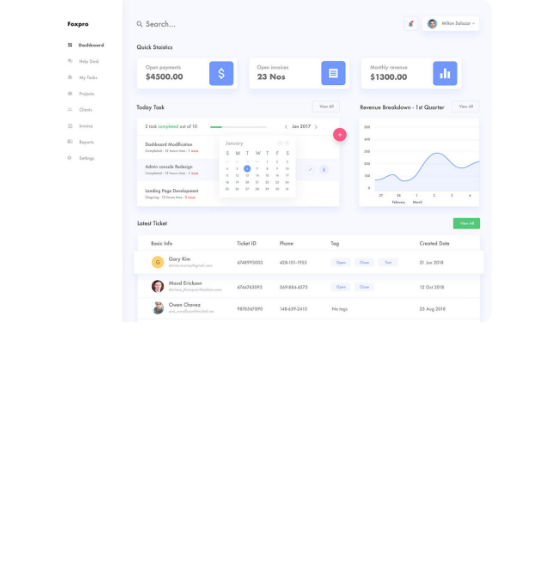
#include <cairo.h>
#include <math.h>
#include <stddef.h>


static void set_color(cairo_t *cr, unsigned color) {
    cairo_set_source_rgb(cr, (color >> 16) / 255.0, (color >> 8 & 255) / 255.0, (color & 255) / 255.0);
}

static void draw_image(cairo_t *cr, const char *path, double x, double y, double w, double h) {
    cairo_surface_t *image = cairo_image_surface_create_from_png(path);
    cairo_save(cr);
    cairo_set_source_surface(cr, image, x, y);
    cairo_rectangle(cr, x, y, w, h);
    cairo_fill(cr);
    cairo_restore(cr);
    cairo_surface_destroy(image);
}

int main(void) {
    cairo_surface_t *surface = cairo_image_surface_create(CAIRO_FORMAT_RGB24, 543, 578);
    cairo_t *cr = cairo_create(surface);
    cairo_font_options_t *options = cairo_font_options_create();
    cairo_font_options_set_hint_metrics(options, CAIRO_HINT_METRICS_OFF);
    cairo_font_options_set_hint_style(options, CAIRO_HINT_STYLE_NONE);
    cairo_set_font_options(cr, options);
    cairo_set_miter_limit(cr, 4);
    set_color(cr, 0xFFFFFF);
    cairo_paint(cr);
    draw_image(cr, "assets/img1.png", 67, 0, 425, 322);
    cairo_surface_write_to_png(surface, "output.png");
    cairo_font_options_destroy(options);
    cairo_destroy(cr);
    cairo_surface_destroy(surface);
    return 0;
}
